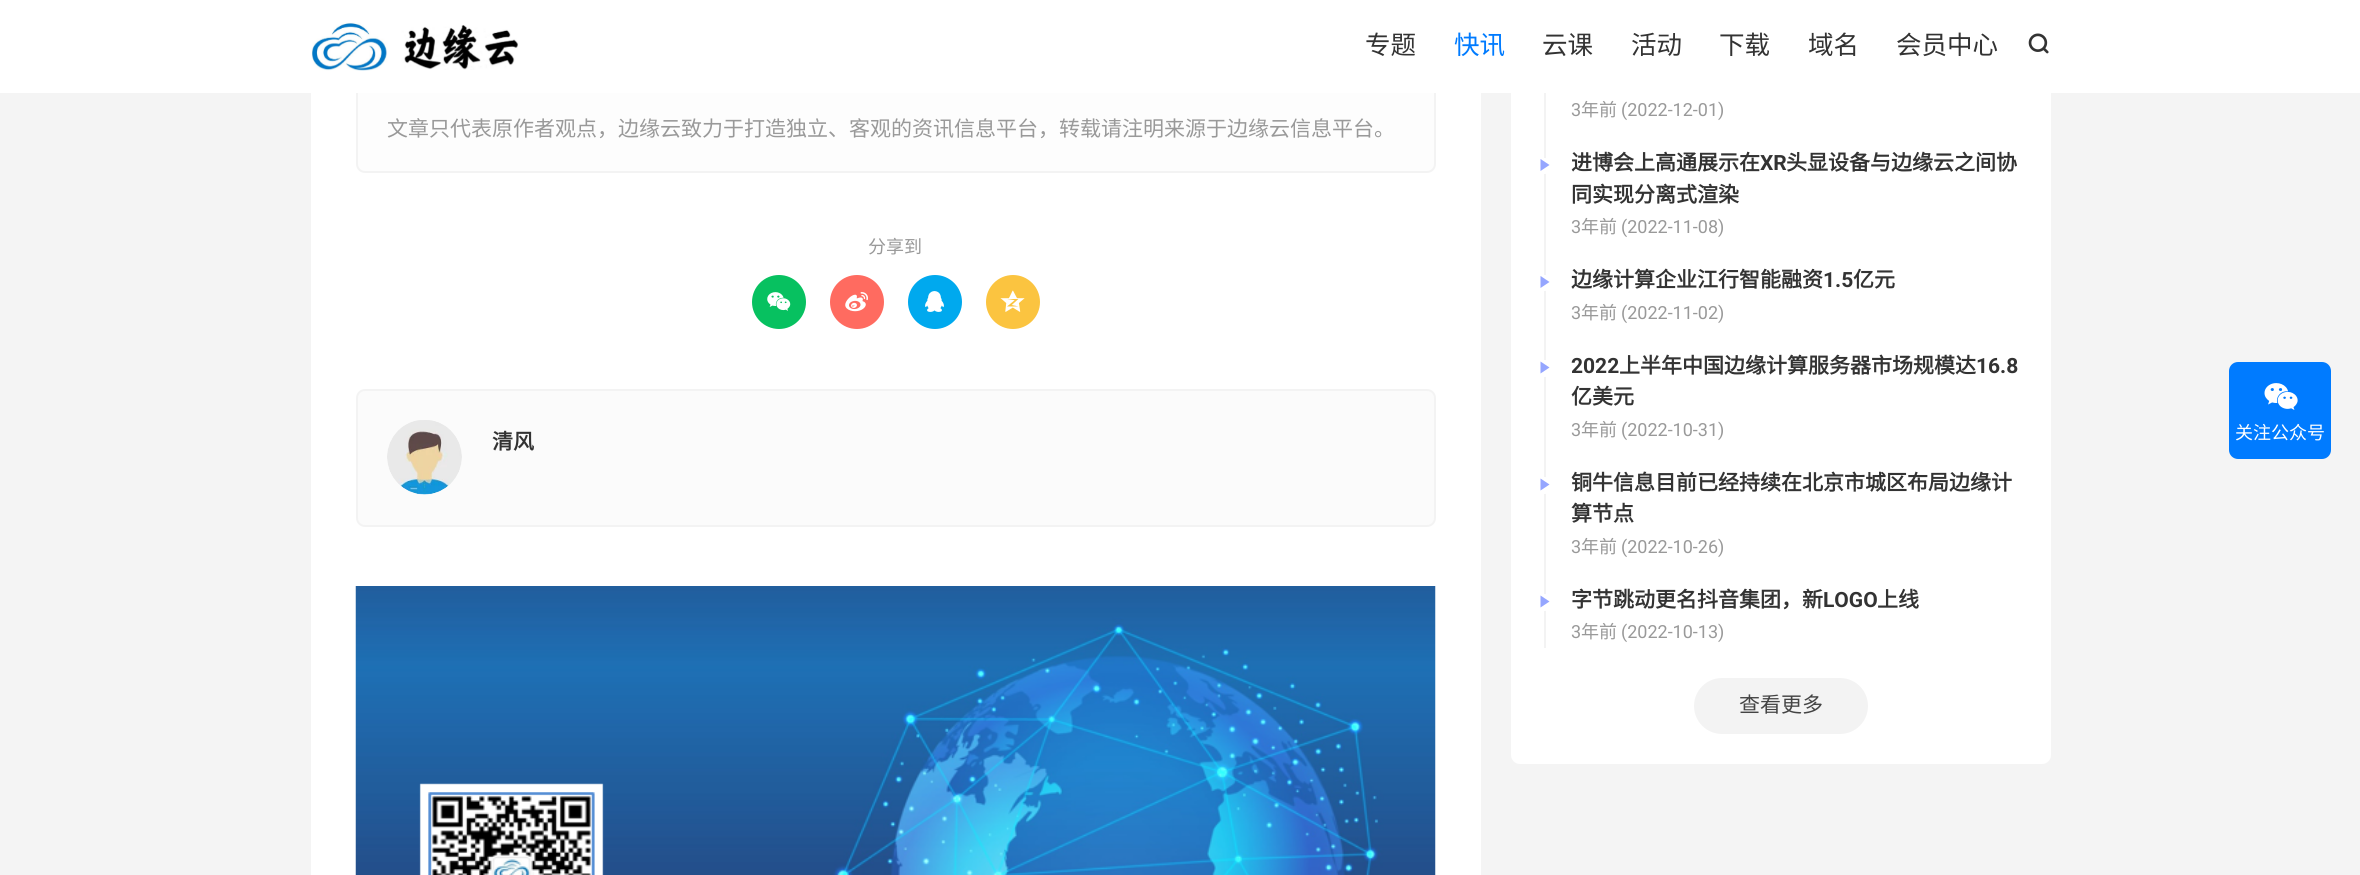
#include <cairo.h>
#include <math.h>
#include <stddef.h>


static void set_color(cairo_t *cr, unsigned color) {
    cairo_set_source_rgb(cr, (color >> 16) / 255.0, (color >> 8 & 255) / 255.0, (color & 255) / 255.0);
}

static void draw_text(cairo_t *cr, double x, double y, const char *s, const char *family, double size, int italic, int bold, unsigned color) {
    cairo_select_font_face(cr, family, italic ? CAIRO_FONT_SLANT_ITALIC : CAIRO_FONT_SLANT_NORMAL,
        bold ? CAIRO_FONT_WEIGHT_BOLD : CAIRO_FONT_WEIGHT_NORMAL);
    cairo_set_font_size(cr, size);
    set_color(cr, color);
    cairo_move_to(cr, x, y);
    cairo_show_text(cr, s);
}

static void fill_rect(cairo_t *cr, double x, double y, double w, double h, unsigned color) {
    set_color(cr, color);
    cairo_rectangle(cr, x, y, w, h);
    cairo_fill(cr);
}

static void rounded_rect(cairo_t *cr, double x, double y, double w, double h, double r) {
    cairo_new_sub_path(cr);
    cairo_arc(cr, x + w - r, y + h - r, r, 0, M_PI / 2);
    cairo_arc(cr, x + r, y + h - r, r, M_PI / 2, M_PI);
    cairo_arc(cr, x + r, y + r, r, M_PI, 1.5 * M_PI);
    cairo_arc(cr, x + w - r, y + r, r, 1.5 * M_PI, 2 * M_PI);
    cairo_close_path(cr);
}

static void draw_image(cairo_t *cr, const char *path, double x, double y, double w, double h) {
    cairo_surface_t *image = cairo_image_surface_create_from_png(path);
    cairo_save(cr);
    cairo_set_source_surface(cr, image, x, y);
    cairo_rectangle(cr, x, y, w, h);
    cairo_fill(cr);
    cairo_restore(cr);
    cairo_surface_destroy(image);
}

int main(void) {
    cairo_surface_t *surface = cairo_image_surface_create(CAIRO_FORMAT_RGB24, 2360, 875);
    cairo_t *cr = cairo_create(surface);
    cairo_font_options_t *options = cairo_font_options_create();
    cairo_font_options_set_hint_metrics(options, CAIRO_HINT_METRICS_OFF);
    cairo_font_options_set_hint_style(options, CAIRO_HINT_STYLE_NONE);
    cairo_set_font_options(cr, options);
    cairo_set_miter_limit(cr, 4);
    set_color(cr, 0xF4F4F4);
    cairo_paint(cr);
    fill_rect(cr, 311, 93, 1170, 782, 0xFFFFFF);
    set_color(cr, 0xFDFDFD);
    rounded_rect(cr, 357, 85, 1078, 87, 8);
    cairo_fill_preserve(cr);
    set_color(cr, 0xF3F3F3);
    cairo_stroke(cr);
    set_color(cr, 0xFFFFFF);
    rounded_rect(cr, 1511, -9, 540, 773, 9);
    cairo_fill(cr);
    fill_rect(cr, 0, 0, 2360, 93, 0xFFFFFF);
    draw_image(cr, "assets/img1.png", 311, 22, 208, 49);
    draw_text(cr, 1365, 54, "专题", "Noto Sans CJK SC", 25.5, 0, 0, 0x333333);
    draw_text(cr, 1454, 54, "快讯", "Noto Sans CJK SC", 25.5, 0, 0, 0x007BFF);
    draw_text(cr, 1542, 54, "云课", "Noto Sans CJK SC", 25.5, 0, 0, 0x333333);
    draw_text(cr, 1631, 54, "活动", "Noto Sans CJK SC", 25.5, 0, 0, 0x333333);
    draw_text(cr, 1719, 54, "下载", "Noto Sans CJK SC", 25.5, 0, 0, 0x333333);
    draw_text(cr, 1808, 54, "域名", "Noto Sans CJK SC", 25.5, 0, 0, 0x333333);
    draw_text(cr, 1896, 54, "会员中心", "Noto Sans CJK SC", 25.5, 0, 0, 0x333333);
    draw_image(cr, "assets/img2.png", 2028, 33, 21, 21);
    draw_text(cr, 387, 136, "文章只代表原作者观点，边缘云致力于打造独立、客观的资讯信息平台，转载请注明来源于边缘云信息平台。", "Noto Sans CJK SC", 21, 0, 0, 0x999999);
    draw_text(cr, 868, 253, "分享到", "Noto Sans CJK SC", 18, 0, 0, 0x999999);
    set_color(cr, 0x07C160);
    cairo_new_path(cr);
    cairo_arc(cr, 779, 302, 27, 0, 2 * M_PI);
    cairo_fill(cr);
    draw_image(cr, "assets/img3.png", 767, 292, 24, 19);
    set_color(cr, 0xFF6B60);
    cairo_arc(cr, 857, 302, 27, 0, 2 * M_PI);
    cairo_fill(cr);
    draw_image(cr, "assets/img4.png", 845, 292, 23, 20);
    set_color(cr, 0x00A9EE);
    cairo_arc(cr, 935, 302, 27, 0, 2 * M_PI);
    cairo_fill(cr);
    draw_image(cr, "assets/img5.png", 925, 291, 19, 21);
    set_color(cr, 0xFBC440);
    cairo_arc(cr, 1013, 302, 27, 0, 2 * M_PI);
    cairo_fill(cr);
    draw_image(cr, "assets/img6.png", 1000, 290, 25, 22);
    set_color(cr, 0xFBFBFB);
    rounded_rect(cr, 357, 390, 1078, 136, 8);
    cairo_fill_preserve(cr);
    set_color(cr, 0xF3F3F3);
    cairo_stroke(cr);
    draw_image(cr, "assets/img7.png", 387, 420, 75, 75);
    draw_text(cr, 492, 449, "清风", "Noto Sans CJK SC", 21, 0, 1, 0x333333);
    draw_image(cr, "assets/img8.png", 355, 586, 1081, 289);
    fill_rect(cr, 1544, 93, 2, 555, 0xF3F3F3);
    draw_text(cr, 1571, 116, "3", "Roboto", 18, 0, 0, 0x999999);
    draw_text(cr, 1581, 116, "年前", "Noto Sans CJK SC", 18, 0, 0, 0x999999);
    draw_text(cr, 1621, 116, "(2022-12-01)", "Roboto", 18, 0, 0, 0x999999);
    set_color(cr, 0xFFFFFF);
    rounded_rect(cr, 1536, 158, 17, 16, 8);
    cairo_fill(cr);
    draw_text(cr, 1571, 170, "进博会上高通展示在", "Noto Sans CJK SC", 21, 0, 1, 0x333333);
    draw_text(cr, 1760, 170, "XR", "Roboto", 21, 0, 1, 0x333333);
    draw_text(cr, 1786, 170, "头显设备与边缘云之间协", "Noto Sans CJK SC", 21, 0, 1, 0x333333);
    draw_text(cr, 1571, 202, "同实现分离式渲染", "Noto Sans CJK SC", 21, 0, 1, 0x333333);
    set_color(cr, 0x95A6FF);
    cairo_new_path(cr);
    cairo_move_to(cr, 1540.5, 171);
    cairo_line_to(cr, 1540.5, 159);
    cairo_line_to(cr, 1549.5, 165);
    cairo_close_path(cr);
    cairo_fill(cr);
    draw_text(cr, 1571, 233, "3", "Roboto", 18, 0, 0, 0x999999);
    draw_text(cr, 1581, 233, "年前", "Noto Sans CJK SC", 18, 0, 0, 0x999999);
    draw_text(cr, 1621, 233, "(2022-11-08)", "Roboto", 18, 0, 0, 0x999999);
    set_color(cr, 0xFFFFFF);
    rounded_rect(cr, 1536, 275, 17, 16, 8);
    cairo_fill(cr);
    draw_text(cr, 1571, 287, "边缘计算企业江行智能融资", "Noto Sans CJK SC", 21, 0, 1, 0x333333);
    draw_text(cr, 1823, 287, "1.5", "Roboto", 21, 0, 1, 0x333333);
    draw_text(cr, 1853, 287, "亿元", "Noto Sans CJK SC", 21, 0, 1, 0x333333);
    set_color(cr, 0x95A6FF);
    cairo_new_path(cr);
    cairo_move_to(cr, 1540.5, 288);
    cairo_line_to(cr, 1540.5, 276);
    cairo_line_to(cr, 1549.5, 282);
    cairo_close_path(cr);
    cairo_fill(cr);
    draw_text(cr, 1571, 319, "3", "Roboto", 18, 0, 0, 0x999999);
    draw_text(cr, 1581, 319, "年前", "Noto Sans CJK SC", 18, 0, 0, 0x999999);
    draw_text(cr, 1621, 319, "(2022-11-02)", "Roboto", 18, 0, 0, 0x999999);
    set_color(cr, 0xFFFFFF);
    cairo_new_path(cr);
    cairo_arc(cr, 1544.5, 368.5, 8.5, 0, 2 * M_PI);
    cairo_fill(cr);
    draw_text(cr, 1571, 373, "2022", "Roboto", 21, 0, 1, 0x333333);
    draw_text(cr, 1619, 373, "上半年中国边缘计算服务器市场规模达", "Noto Sans CJK SC", 21, 0, 1, 0x333333);
    draw_text(cr, 1976, 373, "16.8", "Roboto", 21, 0, 1, 0x333333);
    draw_text(cr, 1571, 404, "亿美元", "Noto Sans CJK SC", 21, 0, 1, 0x333333);
    set_color(cr, 0x95A6FF);
    cairo_new_path(cr);
    cairo_move_to(cr, 1540.5, 373.5);
    cairo_line_to(cr, 1540.5, 361.5);
    cairo_line_to(cr, 1549.5, 367.5);
    cairo_close_path(cr);
    cairo_fill(cr);
    draw_text(cr, 1571, 436, "3", "Roboto", 18, 0, 0, 0x999999);
    draw_text(cr, 1581, 436, "年前", "Noto Sans CJK SC", 18, 0, 0, 0x999999);
    draw_text(cr, 1621, 436, "(2022-10-31)", "Roboto", 18, 0, 0, 0x999999);
    set_color(cr, 0xFFFFFF);
    cairo_new_path(cr);
    cairo_arc(cr, 1544.5, 485.5, 8.5, 0, 2 * M_PI);
    cairo_fill(cr);
    draw_text(cr, 1571, 490, "铜牛信息目前已经持续在北京市城区布局边缘计", "Noto Sans CJK SC", 21, 0, 1, 0x333333);
    draw_text(cr, 1571, 521, "算节点", "Noto Sans CJK SC", 21, 0, 1, 0x333333);
    set_color(cr, 0x95A6FF);
    cairo_new_path(cr);
    cairo_move_to(cr, 1540.5, 490.5);
    cairo_line_to(cr, 1540.5, 478.5);
    cairo_line_to(cr, 1549.5, 484.5);
    cairo_close_path(cr);
    cairo_fill(cr);
    draw_text(cr, 1571, 553, "3", "Roboto", 18, 0, 0, 0x999999);
    draw_text(cr, 1581, 553, "年前", "Noto Sans CJK SC", 18, 0, 0, 0x999999);
    draw_text(cr, 1621, 553, "(2022-10-26)", "Roboto", 18, 0, 0, 0x999999);
    set_color(cr, 0xFFFFFF);
    cairo_new_path(cr);
    cairo_arc(cr, 1544.5, 602.5, 8.5, 0, 2 * M_PI);
    cairo_fill(cr);
    draw_text(cr, 1571, 607, "字节跳动更名抖音集团，新", "Noto Sans CJK SC", 21, 0, 1, 0x333333);
    draw_text(cr, 1823, 607, "LOGO", "Roboto", 21, 0, 1, 0x333333);
    draw_text(cr, 1877, 607, "上线", "Noto Sans CJK SC", 21, 0, 1, 0x333333);
    set_color(cr, 0x95A6FF);
    cairo_new_path(cr);
    cairo_move_to(cr, 1540.5, 607.5);
    cairo_line_to(cr, 1540.5, 595.5);
    cairo_line_to(cr, 1549.5, 601.5);
    cairo_close_path(cr);
    cairo_fill(cr);
    draw_text(cr, 1571, 638, "3", "Roboto", 18, 0, 0, 0x999999);
    draw_text(cr, 1581, 638, "年前", "Noto Sans CJK SC", 18, 0, 0, 0x999999);
    draw_text(cr, 1621, 638, "(2022-10-13)", "Roboto", 18, 0, 0, 0x999999);
    set_color(cr, 0xF3F3F3);
    rounded_rect(cr, 1694, 678, 174, 56, 28);
    cairo_fill(cr);
    draw_text(cr, 1739, 712, "查看更多", "Noto Sans CJK SC", 21, 0, 0, 0x444444);
    set_color(cr, 0x007BFF);
    rounded_rect(cr, 2230, 363, 100, 95, 8);
    cairo_fill_preserve(cr);
    cairo_stroke(cr);
    draw_image(cr, "assets/img9.png", 2264, 383, 34, 27);
    draw_text(cr, 2235, 439, "关注公众号", "Noto Sans CJK SC", 18, 0, 0, 0xFFFFFF);
    cairo_surface_write_to_png(surface, "output.png");
    cairo_font_options_destroy(options);
    cairo_destroy(cr);
    cairo_surface_destroy(surface);
    return 0;
}
